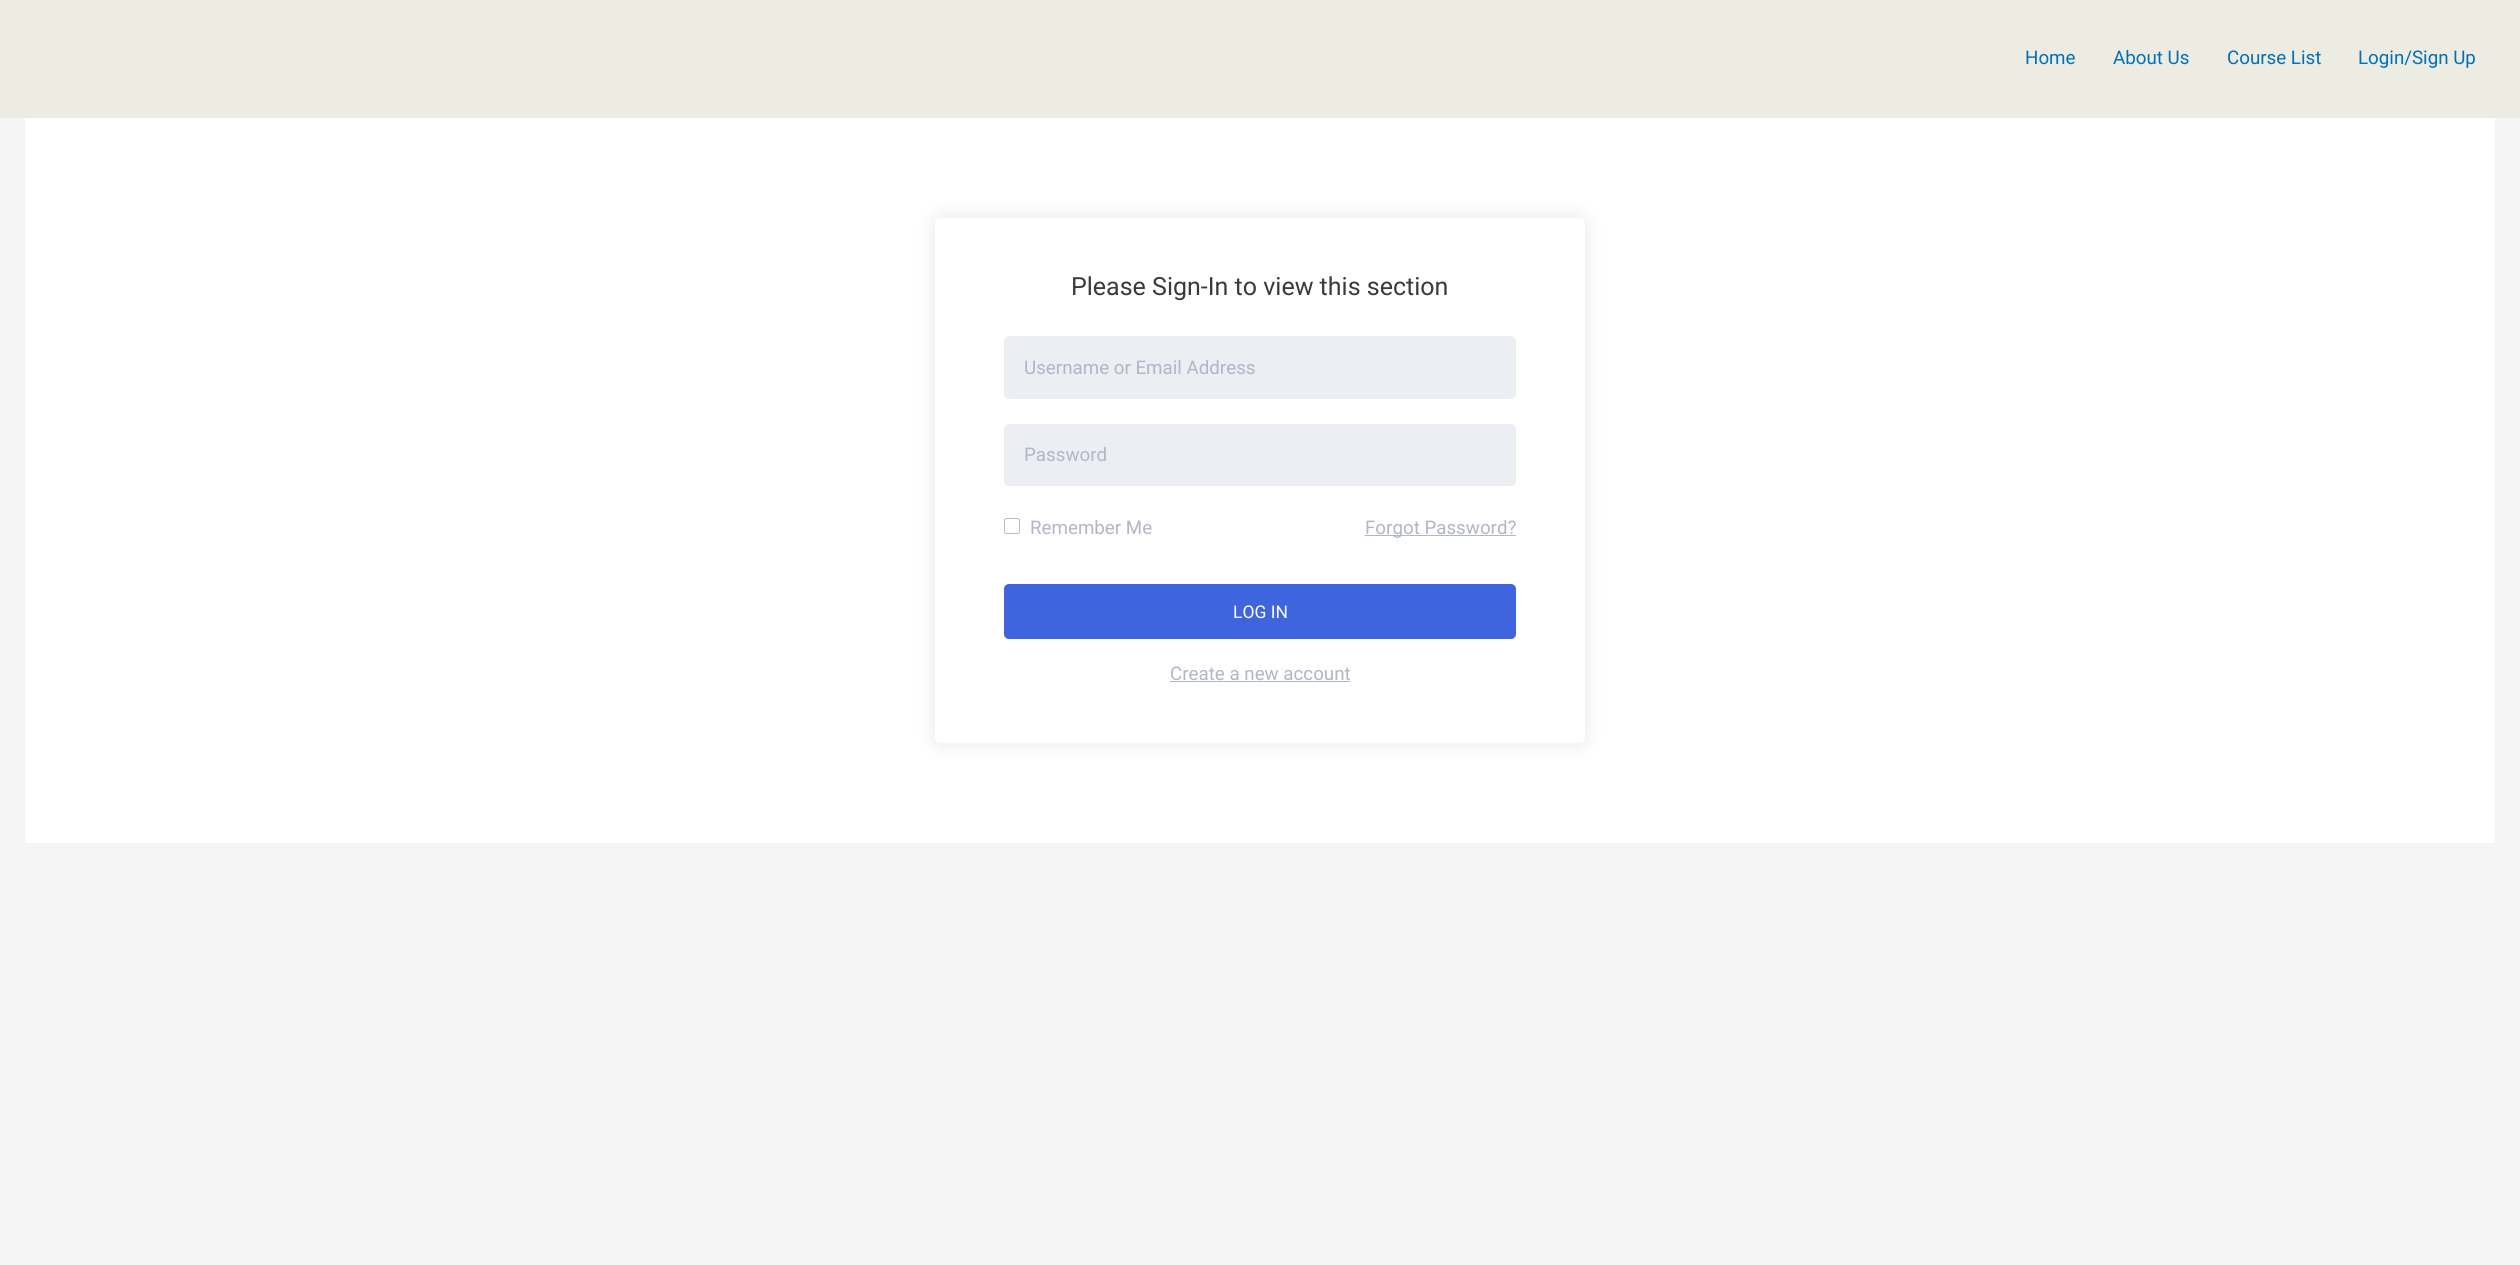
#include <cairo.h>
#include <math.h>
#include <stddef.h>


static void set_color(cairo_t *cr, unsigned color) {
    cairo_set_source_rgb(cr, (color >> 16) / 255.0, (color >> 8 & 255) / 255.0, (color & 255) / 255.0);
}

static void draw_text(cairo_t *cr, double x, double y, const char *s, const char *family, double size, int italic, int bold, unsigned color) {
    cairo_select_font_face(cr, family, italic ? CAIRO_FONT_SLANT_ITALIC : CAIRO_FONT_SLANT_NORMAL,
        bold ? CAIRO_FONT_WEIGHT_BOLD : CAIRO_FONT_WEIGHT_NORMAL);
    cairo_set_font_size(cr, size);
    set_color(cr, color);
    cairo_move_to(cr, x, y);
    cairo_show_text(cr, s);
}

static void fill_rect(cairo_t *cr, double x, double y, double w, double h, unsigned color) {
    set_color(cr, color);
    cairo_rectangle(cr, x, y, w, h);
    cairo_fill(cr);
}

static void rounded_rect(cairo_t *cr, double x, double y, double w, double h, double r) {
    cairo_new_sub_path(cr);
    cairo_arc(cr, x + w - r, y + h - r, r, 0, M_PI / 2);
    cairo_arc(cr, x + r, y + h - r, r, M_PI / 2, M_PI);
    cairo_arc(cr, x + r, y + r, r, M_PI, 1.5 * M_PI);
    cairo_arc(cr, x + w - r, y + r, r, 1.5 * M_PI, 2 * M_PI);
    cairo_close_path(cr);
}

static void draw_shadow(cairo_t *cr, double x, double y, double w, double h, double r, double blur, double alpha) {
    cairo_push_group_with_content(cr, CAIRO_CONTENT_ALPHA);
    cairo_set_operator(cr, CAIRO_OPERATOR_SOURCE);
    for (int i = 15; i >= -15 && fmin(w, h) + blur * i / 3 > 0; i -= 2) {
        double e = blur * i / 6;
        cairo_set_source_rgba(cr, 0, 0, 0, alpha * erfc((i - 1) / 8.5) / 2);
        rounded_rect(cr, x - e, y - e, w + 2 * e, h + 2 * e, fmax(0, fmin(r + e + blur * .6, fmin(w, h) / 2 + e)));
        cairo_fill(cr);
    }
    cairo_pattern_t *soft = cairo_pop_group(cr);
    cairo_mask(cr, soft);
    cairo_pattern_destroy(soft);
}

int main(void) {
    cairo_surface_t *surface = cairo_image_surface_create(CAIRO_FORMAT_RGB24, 2520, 1265);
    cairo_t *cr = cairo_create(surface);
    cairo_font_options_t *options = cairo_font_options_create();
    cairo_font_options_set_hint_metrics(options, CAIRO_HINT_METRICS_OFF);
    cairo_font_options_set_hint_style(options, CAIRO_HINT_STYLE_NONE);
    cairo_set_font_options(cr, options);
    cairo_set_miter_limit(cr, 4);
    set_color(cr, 0xF5F5F5);
    cairo_paint(cr);
    fill_rect(cr, 0, 0, 2520, 118, 0xECECE2);
    fill_rect(cr, 0, 116, 2520, 1, 0xEAEAEA);
    draw_text(cr, 2025, 64, "Home", "Roboto", 18.75, 0, 0, 0x0170B9);
    draw_text(cr, 2113, 64, "About Us", "Roboto", 18.75, 0, 0, 0x0170B9);
    draw_text(cr, 2227, 64, "Course List", "Roboto", 18.75, 0, 0, 0x0170B9);
    draw_text(cr, 2358, 64, "Login/Sign Up", "Roboto", 18.75, 0, 0, 0x0170B9);
    fill_rect(cr, 25, 118, 2470, 725, 0xFFFFFF);
    cairo_save(cr);
    cairo_set_fill_rule(cr, CAIRO_FILL_RULE_EVEN_ODD);
    cairo_new_path(cr);
    cairo_move_to(cr, 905, 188);
    cairo_line_to(cr, 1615, 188);
    cairo_line_to(cr, 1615, 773);
    cairo_line_to(cr, 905, 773);
    cairo_close_path(cr);
    cairo_move_to(cr, 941, 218);
    cairo_line_to(cr, 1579, 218);
    cairo_curve_to(cr, 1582.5, 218, 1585, 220.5, 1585, 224);
    cairo_line_to(cr, 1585, 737);
    cairo_curve_to(cr, 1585, 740.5, 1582.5, 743, 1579, 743);
    cairo_line_to(cr, 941, 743);
    cairo_curve_to(cr, 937.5, 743, 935, 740.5, 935, 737);
    cairo_line_to(cr, 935, 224);
    cairo_curve_to(cr, 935, 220.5, 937.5, 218, 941, 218);
    cairo_close_path(cr);
    cairo_clip(cr);
    set_color(cr, 0x000000);
    draw_shadow(cr, 935, 218, 650, 525, 6, 9.5, 0.1);
    cairo_restore(cr);
    draw_text(cr, 1071, 295, "Please Sign-In to view this section", "Roboto", 25, 0, 0, 0x3A3A3A);
    set_color(cr, 0xECEEF4);
    rounded_rect(cr, 1004.5, 336.5, 511, 62, 4.5);
    cairo_fill_preserve(cr);
    set_color(cr, 0xE8EFF1);
    cairo_set_line_width(cr, 1);
    cairo_stroke(cr);
    draw_text(cr, 1024, 374, "Username or Email Address", "Roboto", 18.75, 0, 0, 0xB0B6C8);
    set_color(cr, 0xECEEF4);
    rounded_rect(cr, 1004.5, 424.5, 511, 61, 4.5);
    cairo_fill_preserve(cr);
    set_color(cr, 0xE8EFF1);
    cairo_stroke(cr);
    draw_text(cr, 1024, 461, "Password", "Roboto", 18.75, 0, 0, 0xB0B6C8);
    rounded_rect(cr, 1004.5, 518.5, 15, 15, 2);
    set_color(cr, 0xBBBBBB);
    cairo_stroke(cr);
    draw_text(cr, 1030, 534, "Remember Me", "Roboto", 18.75, 0, 0, 0xB0B6C8);
    fill_rect(cr, 1365, 535, 151, 1, 0xB0B6C7);
    draw_text(cr, 1365, 534, "Forgot Password?", "Roboto", 18.75, 0, 0, 0xB0B6C8);
    set_color(cr, 0x3E64DE);
    rounded_rect(cr, 1004, 584, 512, 55, 5);
    cairo_fill(cr);
    draw_text(cr, 1233, 618, "LOG IN", "Roboto", 17.5, 0, 0, 0xFFFFFF);
    draw_text(cr, 1170, 680, "Create a new account", "Roboto", 18.75, 0, 0, 0xB0B6C8);
    fill_rect(cr, 1170, 681, 180, 1, 0xB0B6C7);
    cairo_surface_write_to_png(surface, "output.png");
    cairo_font_options_destroy(options);
    cairo_destroy(cr);
    cairo_surface_destroy(surface);
    return 0;
}
